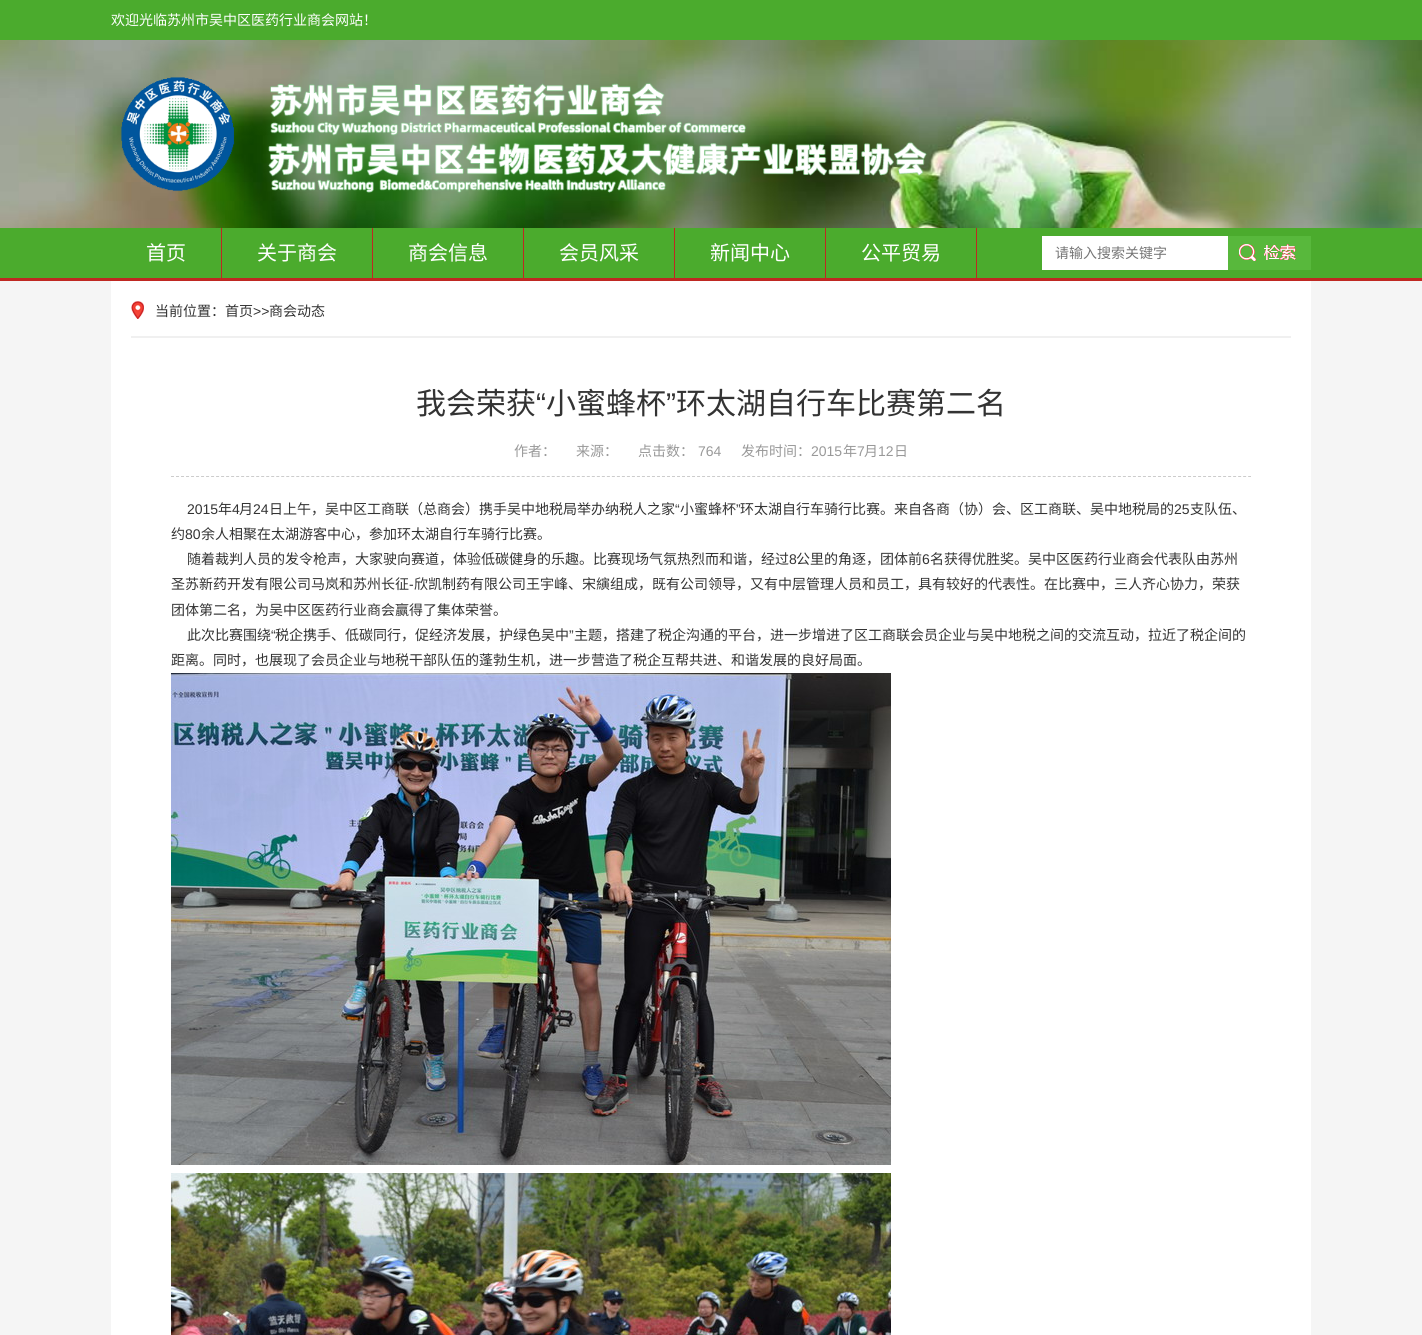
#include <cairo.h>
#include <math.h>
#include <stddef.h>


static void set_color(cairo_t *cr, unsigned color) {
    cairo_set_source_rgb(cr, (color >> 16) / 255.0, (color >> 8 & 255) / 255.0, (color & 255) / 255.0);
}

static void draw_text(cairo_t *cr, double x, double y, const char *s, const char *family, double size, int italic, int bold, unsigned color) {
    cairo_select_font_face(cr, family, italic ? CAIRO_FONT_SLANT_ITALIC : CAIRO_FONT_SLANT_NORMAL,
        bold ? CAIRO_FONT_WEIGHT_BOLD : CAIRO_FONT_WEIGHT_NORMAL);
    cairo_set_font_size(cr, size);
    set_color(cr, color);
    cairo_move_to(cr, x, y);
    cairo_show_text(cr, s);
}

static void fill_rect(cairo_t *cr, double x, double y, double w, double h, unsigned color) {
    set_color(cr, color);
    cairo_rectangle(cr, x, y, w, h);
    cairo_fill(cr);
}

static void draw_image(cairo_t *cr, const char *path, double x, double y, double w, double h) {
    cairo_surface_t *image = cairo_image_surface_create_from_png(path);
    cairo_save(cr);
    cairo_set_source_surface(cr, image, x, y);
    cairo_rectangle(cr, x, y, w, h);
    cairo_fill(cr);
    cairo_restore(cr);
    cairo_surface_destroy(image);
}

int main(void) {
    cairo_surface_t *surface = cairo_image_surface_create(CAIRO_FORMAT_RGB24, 1422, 1335);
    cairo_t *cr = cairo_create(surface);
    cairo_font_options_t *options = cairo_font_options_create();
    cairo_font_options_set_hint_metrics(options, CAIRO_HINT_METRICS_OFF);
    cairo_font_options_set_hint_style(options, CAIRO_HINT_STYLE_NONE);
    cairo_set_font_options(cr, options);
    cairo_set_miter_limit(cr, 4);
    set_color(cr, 0xF5F5F5);
    cairo_paint(cr);
    draw_image(cr, "assets/img1.png", 0, 40, 1422, 188);
    fill_rect(cr, 0, 0, 1422, 40, 0x4BAB2D);
    draw_text(cr, 111, 25, "欢迎光临苏州市吴中区医药行业商会网站！", "Noto Sans CJK SC", 14, 0, 0, 0xFFFFFF);
    draw_image(cr, "assets/img2.png", 121, 77, 806, 116);
    fill_rect(cr, 0, 228, 1422, 50, 0x4BAB2D);
    fill_rect(cr, 0, 278, 1422, 3, 0xBF2822);
    fill_rect(cr, 221, 228, 1, 50, 0xBF2822);
    draw_text(cr, 146, 260, "首页", "Noto Sans CJK SC", 20, 0, 0, 0xFFFFFF);
    fill_rect(cr, 372, 228, 1, 50, 0xBF2822);
    draw_text(cr, 257, 260, "关于商会", "Noto Sans CJK SC", 20, 0, 0, 0xFFFFFF);
    fill_rect(cr, 523, 228, 1, 50, 0xBF2822);
    draw_text(cr, 408, 260, "商会信息", "Noto Sans CJK SC", 20, 0, 0, 0xFFFFFF);
    fill_rect(cr, 674, 228, 1, 50, 0xBF2822);
    draw_text(cr, 559, 260, "会员风采", "Noto Sans CJK SC", 20, 0, 0, 0xFFFFFF);
    fill_rect(cr, 825, 228, 1, 50, 0xBF2822);
    draw_text(cr, 710, 260, "新闻中心", "Noto Sans CJK SC", 20, 0, 0, 0xFFFFFF);
    fill_rect(cr, 976, 228, 1, 50, 0xBF2822);
    draw_text(cr, 861, 260, "公平贸易", "Noto Sans CJK SC", 20, 0, 0, 0xFFFFFF);
    fill_rect(cr, 1042, 236, 186, 34, 0xFFFFFF);
    draw_text(cr, 1055, 258, "请输入搜索关键字", "Noto Sans CJK SC", 14, 0, 0, 0x757575);
    draw_image(cr, "assets/img3.png", 1228, 236, 83, 34);
    fill_rect(cr, 111, 281, 1200, 1054, 0xFFFFFF);
    draw_image(cr, "assets/img4.png", 131, 301, 13, 18);
    fill_rect(cr, 131, 336, 1160, 2, 0xF0F0F0);
    draw_text(cr, 155, 316, "当前位置：首页", "Noto Sans CJK SC", 14, 0, 0, 0x333333);
    draw_text(cr, 253, 316, ">>", "Liberation Sans", 14, 0, 0, 0x333333);
    draw_text(cr, 269, 316, "商会动态", "Noto Sans CJK SC", 14, 0, 0, 0x333333);
    cairo_new_path(cr);
    cairo_move_to(cr, 171, 476.5);
    cairo_line_to(cr, 1251, 476.5);
    set_color(cr, 0xCCCCCC);
    cairo_set_line_width(cr, 1);
    cairo_set_dash(cr, (double[]){3, 2.01}, 2, 0);
    cairo_stroke(cr);
    draw_text(cr, 416, 414, "我会荣获", "Noto Sans CJK SC", 30, 0, 0, 0x333333);
    draw_text(cr, 536, 414, "“", "Liberation Sans", 30, 0, 0, 0x333333);
    draw_text(cr, 546, 414, "小蜜蜂杯", "Noto Sans CJK SC", 30, 0, 0, 0x333333);
    draw_text(cr, 666, 414, "”", "Liberation Sans", 30, 0, 0, 0x333333);
    draw_text(cr, 676, 414, "环太湖自行车比赛第二名", "Noto Sans CJK SC", 30, 0, 0, 0x333333);
    draw_text(cr, 514, 456, "作者：", "Noto Sans CJK SC", 14, 0, 0, 0x999999);
    draw_text(cr, 576, 456, "来源：", "Noto Sans CJK SC", 14, 0, 0, 0x999999);
    draw_text(cr, 638, 456, "点击数：", "Noto Sans CJK SC", 14, 0, 0, 0x999999);
    draw_text(cr, 698, 456, "764", "Liberation Sans", 14, 0, 0, 0x999999);
    draw_text(cr, 741, 456, "发布时间：", "Noto Sans CJK SC", 14, 0, 0, 0x999999);
    draw_text(cr, 811, 456, "2015", "Liberation Sans", 14, 0, 0, 0x999999);
    draw_text(cr, 843, 456, "年", "Noto Sans CJK SC", 14, 0, 0, 0x999999);
    draw_text(cr, 857, 456, "7", "Liberation Sans", 14, 0, 0, 0x999999);
    draw_text(cr, 864, 456, "月", "Noto Sans CJK SC", 14, 0, 0, 0x999999);
    draw_text(cr, 878, 456, "12", "Liberation Sans", 14, 0, 0, 0x999999);
    draw_text(cr, 894, 456, "日", "Noto Sans CJK SC", 14, 0, 0, 0x999999);
    draw_text(cr, 187, 514, "2015", "Liberation Sans", 14, 0, 0, 0x333333);
    draw_text(cr, 218, 514, "年", "Noto Sans CJK SC", 14, 0, 0, 0x333333);
    draw_text(cr, 232, 514, "4", "Liberation Sans", 14, 0, 0, 0x333333);
    draw_text(cr, 239, 514, "月", "Noto Sans CJK SC", 14, 0, 0, 0x333333);
    draw_text(cr, 253, 514, "24", "Liberation Sans", 14, 0, 0, 0x333333);
    draw_text(cr, 269, 514, "日上午，吴中区工商联（总商会）携手吴中地税局举办纳税人之家", "Noto Sans CJK SC", 14, 0, 0, 0x333333);
    draw_text(cr, 675, 514, "“", "Liberation Sans", 14, 0, 0, 0x333333);
    draw_text(cr, 680, 514, "小蜜蜂杯", "Noto Sans CJK SC", 14, 0, 0, 0x333333);
    draw_text(cr, 736, 514, "”", "Liberation Sans", 14, 0, 0, 0x333333);
    draw_text(cr, 740, 514, "环太湖自行车骑行比赛。来自各商（协）会、区工商联、吴中地税局的", "Noto Sans CJK SC", 14, 0, 0, 0x333333);
    draw_text(cr, 1174, 514, "25", "Liberation Sans", 14, 0, 0, 0x333333);
    draw_text(cr, 1190, 514, "支队伍、", "Noto Sans CJK SC", 14, 0, 0, 0x333333);
    draw_text(cr, 171, 539, "约", "Noto Sans CJK SC", 14, 0, 0, 0x333333);
    draw_text(cr, 185, 539, "80", "Liberation Sans", 14, 0, 0, 0x333333);
    draw_text(cr, 201, 539, "余人相聚在太湖游客中心，参加环太湖自行车骑行比赛。", "Noto Sans CJK SC", 14, 0, 0, 0x333333);
    draw_text(cr, 187, 564, "随着裁判人员的发令枪声，大家驶向赛道，体验低碳健身的乐趣。比赛现场气氛热烈而和谐，经过", "Noto Sans CJK SC", 14, 0, 0, 0x333333);
    draw_text(cr, 789, 564, "8", "Liberation Sans", 14, 0, 0, 0x333333);
    draw_text(cr, 796, 564, "公里的角逐，团体前", "Noto Sans CJK SC", 14, 0, 0, 0x333333);
    draw_text(cr, 922, 564, "6", "Liberation Sans", 14, 0, 0, 0x333333);
    draw_text(cr, 930, 564, "名获得优胜奖。吴中区医药行业商会代表队由苏州", "Noto Sans CJK SC", 14, 0, 0, 0x333333);
    draw_text(cr, 171, 589, "圣苏新药开发有限公司马岚和苏州长征", "Noto Sans CJK SC", 14, 0, 0, 0x333333);
    draw_text(cr, 409, 589, "-", "Liberation Sans", 14, 0, 0, 0x333333);
    draw_text(cr, 414, 589, "欣凯制药有限公司王宇峰、宋縯组成，既有公司领导，又有中层管理人员和员工，具有较好的代表性。在比赛中，三人齐心协力，荣获", "Noto Sans CJK SC", 14, 0, 0, 0x333333);
    draw_text(cr, 171, 615, "团体第二名，为吴中区医药行业商会赢得了集体荣誉。", "Noto Sans CJK SC", 14, 0, 0, 0x333333);
    draw_text(cr, 187, 640, "此次比赛围绕", "Noto Sans CJK SC", 14, 0, 0, 0x333333);
    draw_text(cr, 271, 640, "“", "Liberation Sans", 14, 0, 0, 0x333333);
    draw_text(cr, 275, 640, "税企携手、低碳同行，促经济发展，护绿色吴中", "Noto Sans CJK SC", 14, 0, 0, 0x333333);
    draw_text(cr, 569, 640, "”", "Liberation Sans", 14, 0, 0, 0x333333);
    draw_text(cr, 574, 640, "主题，搭建了税企沟通的平台，进一步增进了区工商联会员企业与吴中地税之间的交流互动，拉近了税企间的", "Noto Sans CJK SC", 14, 0, 0, 0x333333);
    draw_text(cr, 171, 665, "距离。同时，也展现了会员企业与地税干部队伍的蓬勃生机，进一步营造了税企互帮共进、和谐发展的良好局面。", "Noto Sans CJK SC", 14, 0, 0, 0x333333);
    draw_image(cr, "assets/img5.png", 171, 673, 720, 492);
    draw_image(cr, "assets/img6.png", 171, 1173, 720, 162);
    cairo_surface_write_to_png(surface, "output.png");
    cairo_font_options_destroy(options);
    cairo_destroy(cr);
    cairo_surface_destroy(surface);
    return 0;
}
